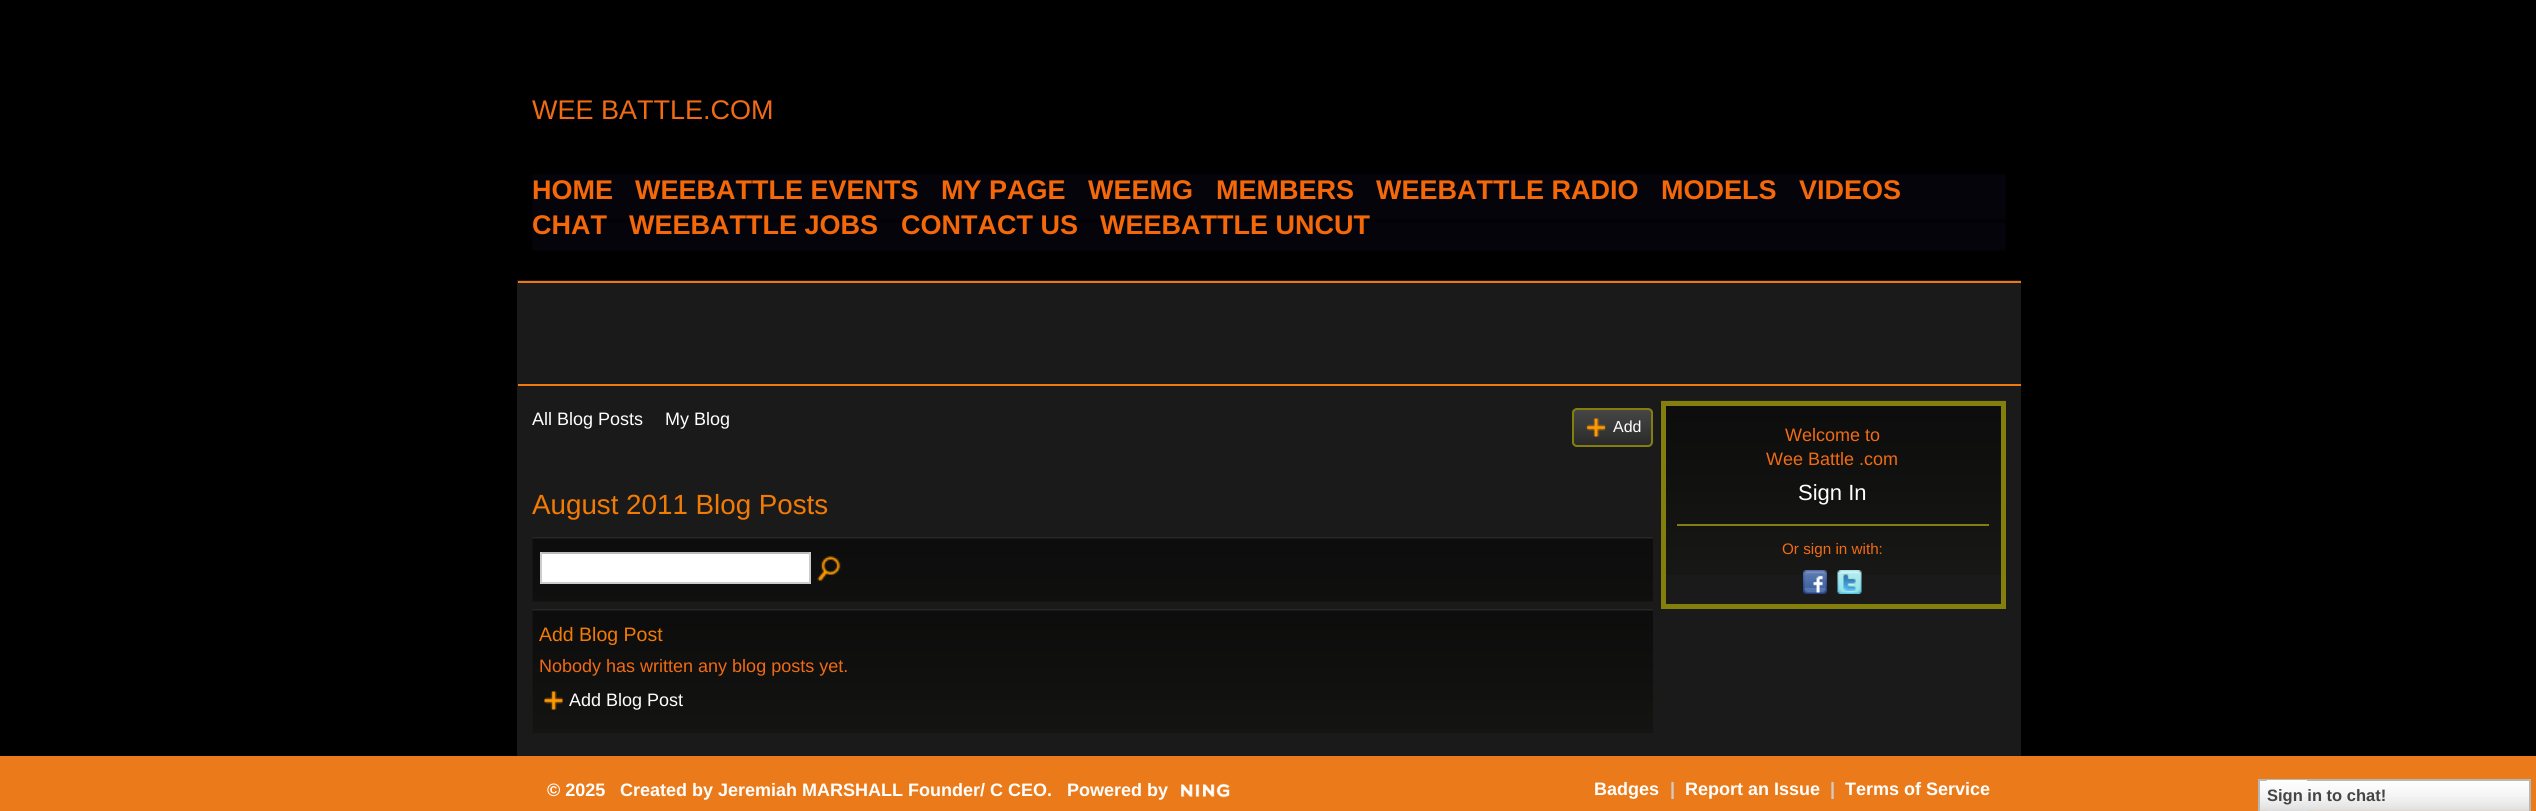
#include <cairo.h>
#include <math.h>
#include <stddef.h>


static void set_color(cairo_t *cr, unsigned color) {
    cairo_set_source_rgb(cr, (color >> 16) / 255.0, (color >> 8 & 255) / 255.0, (color & 255) / 255.0);
}

static void draw_text(cairo_t *cr, double x, double y, const char *s, const char *family, double size, int italic, int bold, unsigned color) {
    cairo_select_font_face(cr, family, italic ? CAIRO_FONT_SLANT_ITALIC : CAIRO_FONT_SLANT_NORMAL,
        bold ? CAIRO_FONT_WEIGHT_BOLD : CAIRO_FONT_WEIGHT_NORMAL);
    cairo_set_font_size(cr, size);
    set_color(cr, color);
    cairo_move_to(cr, x, y);
    cairo_show_text(cr, s);
}

static void fill_rect(cairo_t *cr, double x, double y, double w, double h, unsigned color) {
    set_color(cr, color);
    cairo_rectangle(cr, x, y, w, h);
    cairo_fill(cr);
}

static void rounded_rect(cairo_t *cr, double x, double y, double w, double h, double r) {
    cairo_new_sub_path(cr);
    cairo_arc(cr, x + w - r, y + h - r, r, 0, M_PI / 2);
    cairo_arc(cr, x + r, y + h - r, r, M_PI / 2, M_PI);
    cairo_arc(cr, x + r, y + r, r, M_PI, 1.5 * M_PI);
    cairo_arc(cr, x + w - r, y + r, r, 1.5 * M_PI, 2 * M_PI);
    cairo_close_path(cr);
}

static void draw_image(cairo_t *cr, const char *path, double x, double y, double w, double h) {
    cairo_surface_t *image = cairo_image_surface_create_from_png(path);
    cairo_save(cr);
    cairo_set_source_surface(cr, image, x, y);
    cairo_rectangle(cr, x, y, w, h);
    cairo_fill(cr);
    cairo_restore(cr);
    cairo_surface_destroy(image);
}

int main(void) {
    cairo_surface_t *surface = cairo_image_surface_create(CAIRO_FORMAT_RGB24, 2536, 811);
    cairo_t *cr = cairo_create(surface);
    cairo_font_options_t *options = cairo_font_options_create();
    cairo_font_options_set_hint_metrics(options, CAIRO_HINT_METRICS_OFF);
    cairo_font_options_set_hint_style(options, CAIRO_HINT_STYLE_NONE);
    cairo_set_font_options(cr, options);
    cairo_set_miter_limit(cr, 4);
    set_color(cr, 0x000000);
    cairo_paint(cr);
    draw_text(cr, 532, 119, "WEE BATTLE.COM", "Liberation Sans", 27, 0, 0, 0xF06B13);
    draw_image(cr, "assets/img1.png", 532, 174, 1474, 77);
    draw_text(cr, 532, 199, "HOME", "Liberation Sans", 27, 0, 1, 0xF5680A);
    draw_text(cr, 635, 199, "WEEBATTLE EVENTS", "Liberation Sans", 27, 0, 1, 0xF5680A);
    draw_text(cr, 941, 199, "MY PAGE", "Liberation Sans", 27, 0, 1, 0xF5680A);
    draw_text(cr, 1088, 199, "WEEMG", "Liberation Sans", 27, 0, 1, 0xF5680A);
    draw_text(cr, 1216, 199, "MEMBERS", "Liberation Sans", 27, 0, 1, 0xF5680A);
    draw_text(cr, 1376, 199, "WEEBATTLE RADIO", "Liberation Sans", 27, 0, 1, 0xF5680A);
    draw_text(cr, 1661, 199, "MODELS", "Liberation Sans", 27, 0, 1, 0xF5680A);
    draw_text(cr, 1799, 199, "VIDEOS", "Liberation Sans", 27, 0, 1, 0xF5680A);
    draw_text(cr, 532, 234, "CHAT", "Liberation Sans", 27, 0, 1, 0xF5680A);
    draw_text(cr, 629, 234, "WEEBATTLE JOBS", "Liberation Sans", 27, 0, 1, 0xF5680A);
    draw_text(cr, 901, 234, "CONTACT US", "Liberation Sans", 27, 0, 1, 0xF5680A);
    draw_text(cr, 1100, 234, "WEEBATTLE UNCUT", "Liberation Sans", 27, 0, 1, 0xF5680A);
    fill_rect(cr, 517, 280, 1504, 476, 0x1A1A1A);
    fill_rect(cr, 518, 281, 1503, 2, 0xF0780E);
    fill_rect(cr, 518, 384, 1503, 2, 0xF0780E);
    draw_text(cr, 532, 425, "All Blog Posts", "Liberation Sans", 18, 0, 0, 0xFFFFFF);
    draw_text(cr, 665, 425, "My Blog", "Liberation Sans", 18, 0, 0, 0xFFFFFF);
    draw_image(cr, "assets/img2.png", 1572, 409, 81, 38);
    rounded_rect(cr, 1573, 409, 79, 37, 4);
    set_color(cr, 0x847F0C);
    cairo_stroke(cr);
    draw_image(cr, "assets/img3.png", 1586, 418, 20, 19);
    draw_text(cr, 1613, 432, "Add", "Liberation Sans", 16, 0, 0, 0xFFFFFF);
    draw_text(cr, 532, 514, "August 2011 Blog Posts", "Liberation Sans", 27.75, 0, 0, 0xF27B05);
    draw_image(cr, "assets/img4.png", 532, 537, 1121, 65);
    fill_rect(cr, 542, 554, 267, 28, 0xFFFFFF);
    fill_rect(cr, 540, 552, 270, 2, 0xBBBBBB);
    fill_rect(cr, 809, 552, 2, 32, 0xCCCCCC);
    fill_rect(cr, 540, 582, 270, 2, 0xCCCCCC);
    fill_rect(cr, 540, 552, 2, 32, 0xCCCCCC);
    draw_image(cr, "assets/img5.png", 817, 556, 24, 25);
    draw_image(cr, "assets/img6.png", 532, 609, 1121, 124);
    draw_text(cr, 539, 641, "Add Blog Post", "Liberation Sans", 19.5, 0, 0, 0xF27B05);
    draw_text(cr, 539, 672, "Nobody has written any blog posts yet.", "Liberation Sans", 18, 0, 0, 0xF06B13);
    draw_image(cr, "assets/img7.png", 544, 691, 19, 19);
    draw_text(cr, 569, 706, "Add Blog Post", "Liberation Sans", 18, 0, 0, 0xFFFFFF);
    draw_image(cr, "assets/img8.png", 1660, 400, 346, 175);
    cairo_rectangle(cr, 1663.5, 403.5, 340, 203);
    set_color(cr, 0x847F0C);
    cairo_set_line_width(cr, 5);
    cairo_stroke(cr);
    draw_text(cr, 1785, 441, "Welcome to", "Liberation Sans", 18, 0, 0, 0xF06B13);
    draw_text(cr, 1766, 465, "Wee Battle .com", "Liberation Sans", 18, 0, 0, 0xF06B13);
    draw_text(cr, 1798, 500, "Sign In", "Liberation Sans", 22, 0, 0, 0xFFFFFF);
    fill_rect(cr, 1677, 524, 312, 2, 0x847F0C);
    draw_text(cr, 1782, 554, "Or sign in with:", "Liberation Sans", 15.25, 0, 0, 0xF06B13);
    draw_image(cr, "assets/img9.png", 1803, 570, 24, 24);
    draw_image(cr, "assets/img10.png", 1837, 570, 25, 24);
    fill_rect(cr, 0, 756, 2536, 55, 0xEB7B1A);
    draw_text(cr, 547, 796, "© 2025", "Liberation Sans", 18, 0, 1, 0xFFFFFF);
    draw_text(cr, 620, 796, "Created by Jeremiah MARSHALL Founder/ C CEO.", "Liberation Sans", 18, 0, 1, 0xFFFFFF);
    draw_text(cr, 1067, 796, "Powered by", "Liberation Sans", 18, 0, 1, 0xFFFFFF);
    draw_image(cr, "assets/img11.png", 1181, 783, 49, 15);
    draw_text(cr, 1594, 795, "Badges", "Liberation Sans", 18, 0, 1, 0xFFFFFF);
    draw_text(cr, 1670, 795, "|", "Liberation Sans", 18, 0, 1, 0xCCCCCC);
    draw_text(cr, 1685, 795, "Report an Issue", "Liberation Sans", 18, 0, 1, 0xFFFFFF);
    draw_text(cr, 1830, 795, "|", "Liberation Sans", 18, 0, 1, 0xCCCCCC);
    draw_text(cr, 1845, 795, "Terms of Service", "Liberation Sans", 18, 0, 1, 0xFFFFFF);
    draw_image(cr, "assets/img12.png", 2260, 781, 269, 30);
    cairo_rectangle(cr, 2259, 780, 271, 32);
    set_color(cr, 0xB7B7B7);
    cairo_set_line_width(cr, 2);
    cairo_stroke(cr);
    draw_image(cr, "assets/img13.png", 2266, 780, 41, 31);
    draw_text(cr, 2267, 801, "Sign in to chat!", "Liberation Sans", 16.5, 0, 1, 0x454545);
    cairo_surface_write_to_png(surface, "output.png");
    cairo_font_options_destroy(options);
    cairo_destroy(cr);
    cairo_surface_destroy(surface);
    return 0;
}
